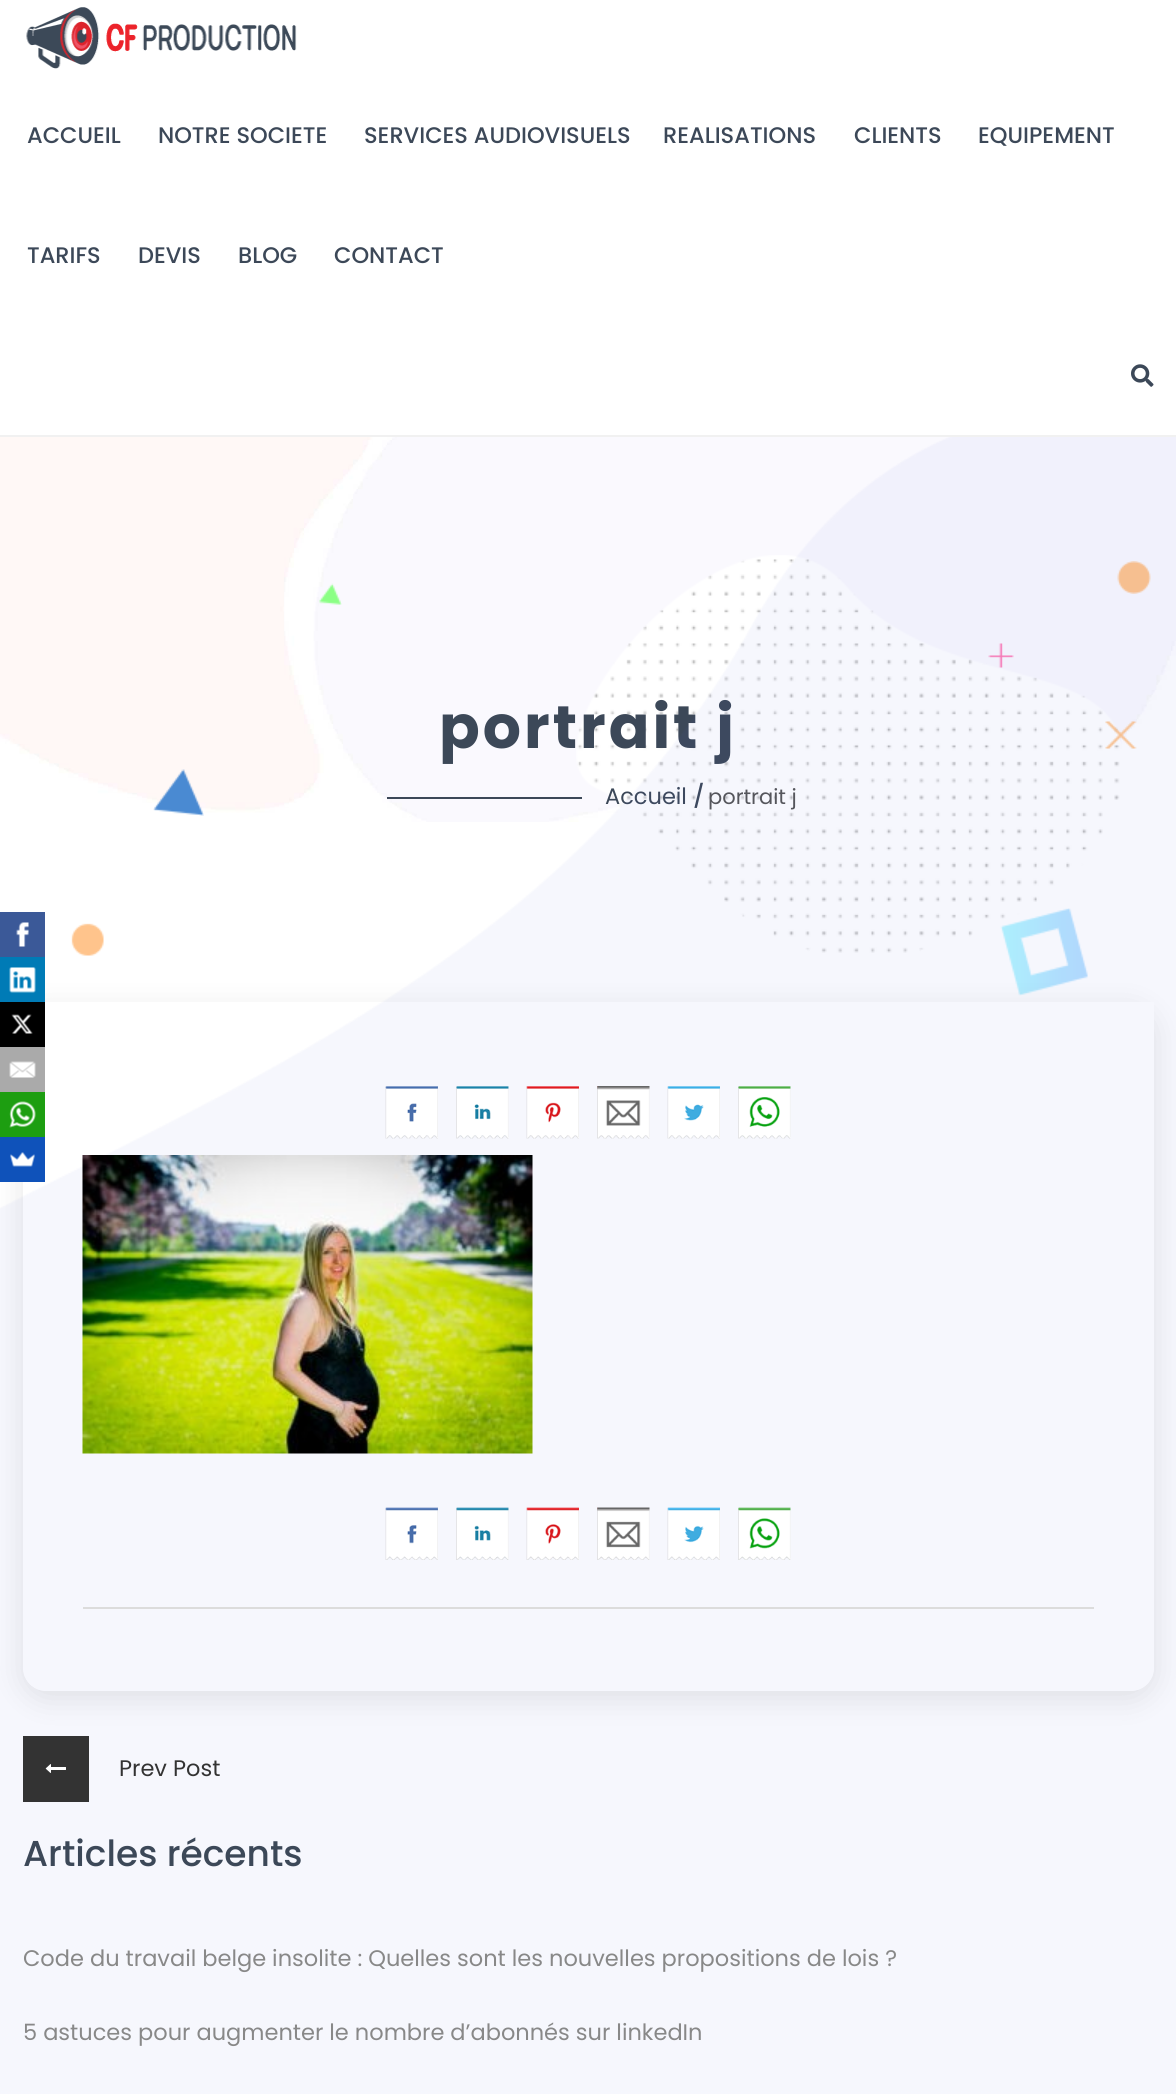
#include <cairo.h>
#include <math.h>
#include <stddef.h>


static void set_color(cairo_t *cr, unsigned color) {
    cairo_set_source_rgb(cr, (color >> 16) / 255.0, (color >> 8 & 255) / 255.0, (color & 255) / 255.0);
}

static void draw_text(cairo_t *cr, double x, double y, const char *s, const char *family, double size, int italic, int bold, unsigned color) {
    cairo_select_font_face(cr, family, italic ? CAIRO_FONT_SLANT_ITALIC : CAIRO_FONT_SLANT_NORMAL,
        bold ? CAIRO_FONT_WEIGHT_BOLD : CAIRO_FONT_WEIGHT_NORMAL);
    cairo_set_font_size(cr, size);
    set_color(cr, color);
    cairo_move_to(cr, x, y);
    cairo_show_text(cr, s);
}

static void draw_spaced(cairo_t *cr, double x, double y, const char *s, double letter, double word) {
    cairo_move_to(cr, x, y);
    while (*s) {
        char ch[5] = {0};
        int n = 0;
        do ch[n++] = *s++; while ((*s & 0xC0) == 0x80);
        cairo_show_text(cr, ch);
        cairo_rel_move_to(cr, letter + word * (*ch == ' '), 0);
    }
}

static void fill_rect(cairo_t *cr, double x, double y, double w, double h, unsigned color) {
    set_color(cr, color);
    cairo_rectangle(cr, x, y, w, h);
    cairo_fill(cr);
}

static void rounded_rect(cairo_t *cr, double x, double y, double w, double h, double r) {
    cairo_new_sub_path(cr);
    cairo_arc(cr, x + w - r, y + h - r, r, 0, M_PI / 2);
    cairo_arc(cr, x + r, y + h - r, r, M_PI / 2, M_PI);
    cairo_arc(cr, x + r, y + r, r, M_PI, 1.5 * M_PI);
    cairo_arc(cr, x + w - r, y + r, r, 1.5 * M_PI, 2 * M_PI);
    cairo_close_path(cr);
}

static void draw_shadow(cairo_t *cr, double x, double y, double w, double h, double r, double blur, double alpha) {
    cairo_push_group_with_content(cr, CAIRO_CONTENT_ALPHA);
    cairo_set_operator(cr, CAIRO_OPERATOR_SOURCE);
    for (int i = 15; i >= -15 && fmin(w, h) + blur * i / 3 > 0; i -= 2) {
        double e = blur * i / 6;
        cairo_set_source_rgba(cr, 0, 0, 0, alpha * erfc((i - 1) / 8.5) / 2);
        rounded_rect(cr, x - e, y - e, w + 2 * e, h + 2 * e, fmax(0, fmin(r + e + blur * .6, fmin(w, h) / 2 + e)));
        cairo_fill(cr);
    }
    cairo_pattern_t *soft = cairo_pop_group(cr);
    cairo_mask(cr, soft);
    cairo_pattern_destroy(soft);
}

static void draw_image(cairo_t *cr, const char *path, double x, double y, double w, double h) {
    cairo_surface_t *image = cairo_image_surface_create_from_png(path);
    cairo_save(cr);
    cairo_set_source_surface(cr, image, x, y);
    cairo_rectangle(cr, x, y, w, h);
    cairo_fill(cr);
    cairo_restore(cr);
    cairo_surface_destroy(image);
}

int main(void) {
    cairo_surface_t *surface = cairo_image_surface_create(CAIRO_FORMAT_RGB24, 1176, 2094);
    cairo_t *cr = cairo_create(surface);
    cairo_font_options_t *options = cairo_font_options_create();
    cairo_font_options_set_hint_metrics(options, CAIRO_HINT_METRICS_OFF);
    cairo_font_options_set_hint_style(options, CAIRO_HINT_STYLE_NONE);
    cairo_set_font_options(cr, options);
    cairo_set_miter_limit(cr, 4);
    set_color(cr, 0xFFFFFF);
    cairo_paint(cr);
    draw_image(cr, "assets/img9.png", 0, 437, 1176, 385);
    draw_image(cr, "assets/img10.png", 576, 555, 544, 398);
    draw_image(cr, "assets/img11.png", 319, 583, 23, 22);
    draw_image(cr, "assets/img12.png", 1117, 561, 34, 33);
    draw_image(cr, "assets/img13.png", 988, 643, 26, 25);
    draw_image(cr, "assets/img14.png", 1105, 721, 32, 28);
    draw_image(cr, "assets/img15.png", 153, 769, 51, 47);
    draw_image(cr, "assets/img16.png", 71, 923, 33, 33);
    draw_image(cr, "assets/img17.png", 1000, 908, 88, 88);
    cairo_select_font_face(cr, "Poppins", CAIRO_FONT_SLANT_NORMAL, CAIRO_FONT_WEIGHT_BOLD);
    cairo_set_font_size(cr, 60);
    set_color(cr, 0x3C4858);
    draw_spaced(cr, 439, 748, "portrait j", 3, 0);
    fill_rect(cr, 387, 797, 195, 2, 0x3C4858);
    draw_text(cr, 605, 804, "Accueil", "Poppins", 22.5, 0, 0, 0x3C4858);
    draw_text(cr, 693, 804, "/", "Poppins Medium", 22.5, 0, 0, 0x3C4858);
    draw_text(cr, 708, 804, "portrait j", "Poppins", 21, 0, 0, 0x555555);
    draw_image(cr, "assets/img18.png", 0, 437, 1176, 1657);
    fill_rect(cr, 0, 912, 45, 45, 0x3B5998);
    draw_image(cr, "assets/img1.png", 16, 922, 13, 25);
    fill_rect(cr, 23, 1736, 66, 66, 0x333333);
    cairo_save(cr);
    cairo_set_fill_rule(cr, CAIRO_FILL_RULE_EVEN_ODD);
    cairo_new_path(cr);
    cairo_move_to(cr, 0, 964);
    cairo_line_to(cr, 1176, 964);
    cairo_line_to(cr, 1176, 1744);
    cairo_line_to(cr, 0, 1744);
    cairo_close_path(cr);
    cairo_move_to(cr, 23, 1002);
    cairo_line_to(cr, 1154, 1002);
    cairo_line_to(cr, 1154, 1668);
    cairo_curve_to(cr, 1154, 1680.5, 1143.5, 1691, 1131, 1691);
    cairo_line_to(cr, 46, 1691);
    cairo_curve_to(cr, 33.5, 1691, 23, 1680.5, 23, 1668);
    cairo_close_path(cr);
    cairo_clip(cr);
    set_color(cr, 0x000000);
    draw_shadow(cr, 23, 1010, 1131, 688, 23, 15, 0.1);
    cairo_restore(cr);
    fill_rect(cr, 0, 957, 45, 45, 0x007BB6);
    draw_image(cr, "assets/img2.png", 9, 967, 27, 26);
    fill_rect(cr, 0, 1002, 45, 45, 0x000000);
    draw_image(cr, "assets/img3.png", 11, 1014, 22, 20);
    fill_rect(cr, 0, 1047, 45, 45, 0xAAAAAA);
    draw_image(cr, "assets/img4.png", 9, 1061, 27, 17);
    fill_rect(cr, 0, 1092, 45, 45, 0x1D9E11);
    draw_image(cr, "assets/img5.png", 9, 1101, 27, 27);
    fill_rect(cr, 0, 1137, 45, 45, 0x0F52BA);
    draw_image(cr, "assets/img6.png", 10, 1152, 25, 15);
    fill_rect(cr, 0, 435, 1176, 2, 0xF1F1F1);
    draw_image(cr, "assets/img7.png", 26, 7, 271, 62);
    draw_text(cr, 27, 143, "ACCUEIL", "Poppins Medium", 22.5, 0, 0, 0x3C4858);
    draw_text(cr, 158, 143, "NOTRE SOCIETE", "Poppins Medium", 22.5, 0, 0, 0x3C4858);
    draw_text(cr, 364, 143, "SERVICES AUDIOVISUELS", "Poppins Medium", 22.5, 0, 0, 0x3C4858);
    draw_text(cr, 663, 143, "REALISATIONS", "Poppins Medium", 22.5, 0, 0, 0x3C4858);
    draw_text(cr, 854, 143, "CLIENTS", "Poppins Medium", 22.5, 0, 0, 0x3C4858);
    draw_text(cr, 978, 143, "EQUIPEMENT", "Poppins Medium", 22.5, 0, 0, 0x3C4858);
    draw_text(cr, 27, 263, "TARIFS", "Poppins Medium", 22.5, 0, 0, 0x3C4858);
    draw_text(cr, 138, 263, "DEVIS", "Poppins Medium", 22.5, 0, 0, 0x3C4858);
    draw_text(cr, 238, 263, "BLOG", "Poppins Medium", 22.5, 0, 0, 0x3C4858);
    draw_text(cr, 334, 263, "CONTACT", "Poppins Medium", 22.5, 0, 0, 0x3C4858);
    draw_image(cr, "assets/img8.png", 1131, 364, 23, 23);
    draw_image(cr, "assets/img19.png", 385, 1086, 53, 53);
    draw_image(cr, "assets/img20.png", 456, 1086, 53, 53);
    draw_image(cr, "assets/img21.png", 526, 1086, 53, 53);
    draw_image(cr, "assets/img22.png", 597, 1086, 53, 53);
    draw_image(cr, "assets/img23.png", 667, 1086, 53, 53);
    draw_image(cr, "assets/img24.png", 738, 1086, 53, 53);
    draw_image(cr, "assets/img25.png", 82, 1155, 451, 299);
    draw_image(cr, "assets/img26.png", 385, 1507, 53, 53);
    draw_image(cr, "assets/img27.png", 456, 1507, 53, 53);
    draw_image(cr, "assets/img28.png", 526, 1507, 53, 53);
    draw_image(cr, "assets/img29.png", 597, 1507, 53, 53);
    draw_image(cr, "assets/img30.png", 667, 1507, 53, 53);
    draw_image(cr, "assets/img31.png", 738, 1507, 53, 53);
    fill_rect(cr, 83, 1607, 1011, 2, 0xDCDCDC);
    draw_image(cr, "assets/img32.png", 45, 1764, 21, 9);
    draw_text(cr, 119, 1776, "Prev Post", "Poppins", 22.5, 0, 0, 0x333333);
    draw_text(cr, 23, 1866, "Articles récents", "Poppins Medium", 36, 0, 0, 0x3C4858);
    draw_text(cr, 23, 1966, "Code du travail belge insolite : Quelles sont les nouvelles propositions de lois ?", "Poppins", 22.5, 0, 0, 0x888888);
    draw_text(cr, 23, 2040, "5 astuces pour augmenter le nombre d’abonnés sur linkedIn", "Poppins", 22.5, 0, 0, 0x888888);
    cairo_surface_write_to_png(surface, "output.png");
    cairo_font_options_destroy(options);
    cairo_destroy(cr);
    cairo_surface_destroy(surface);
    return 0;
}
